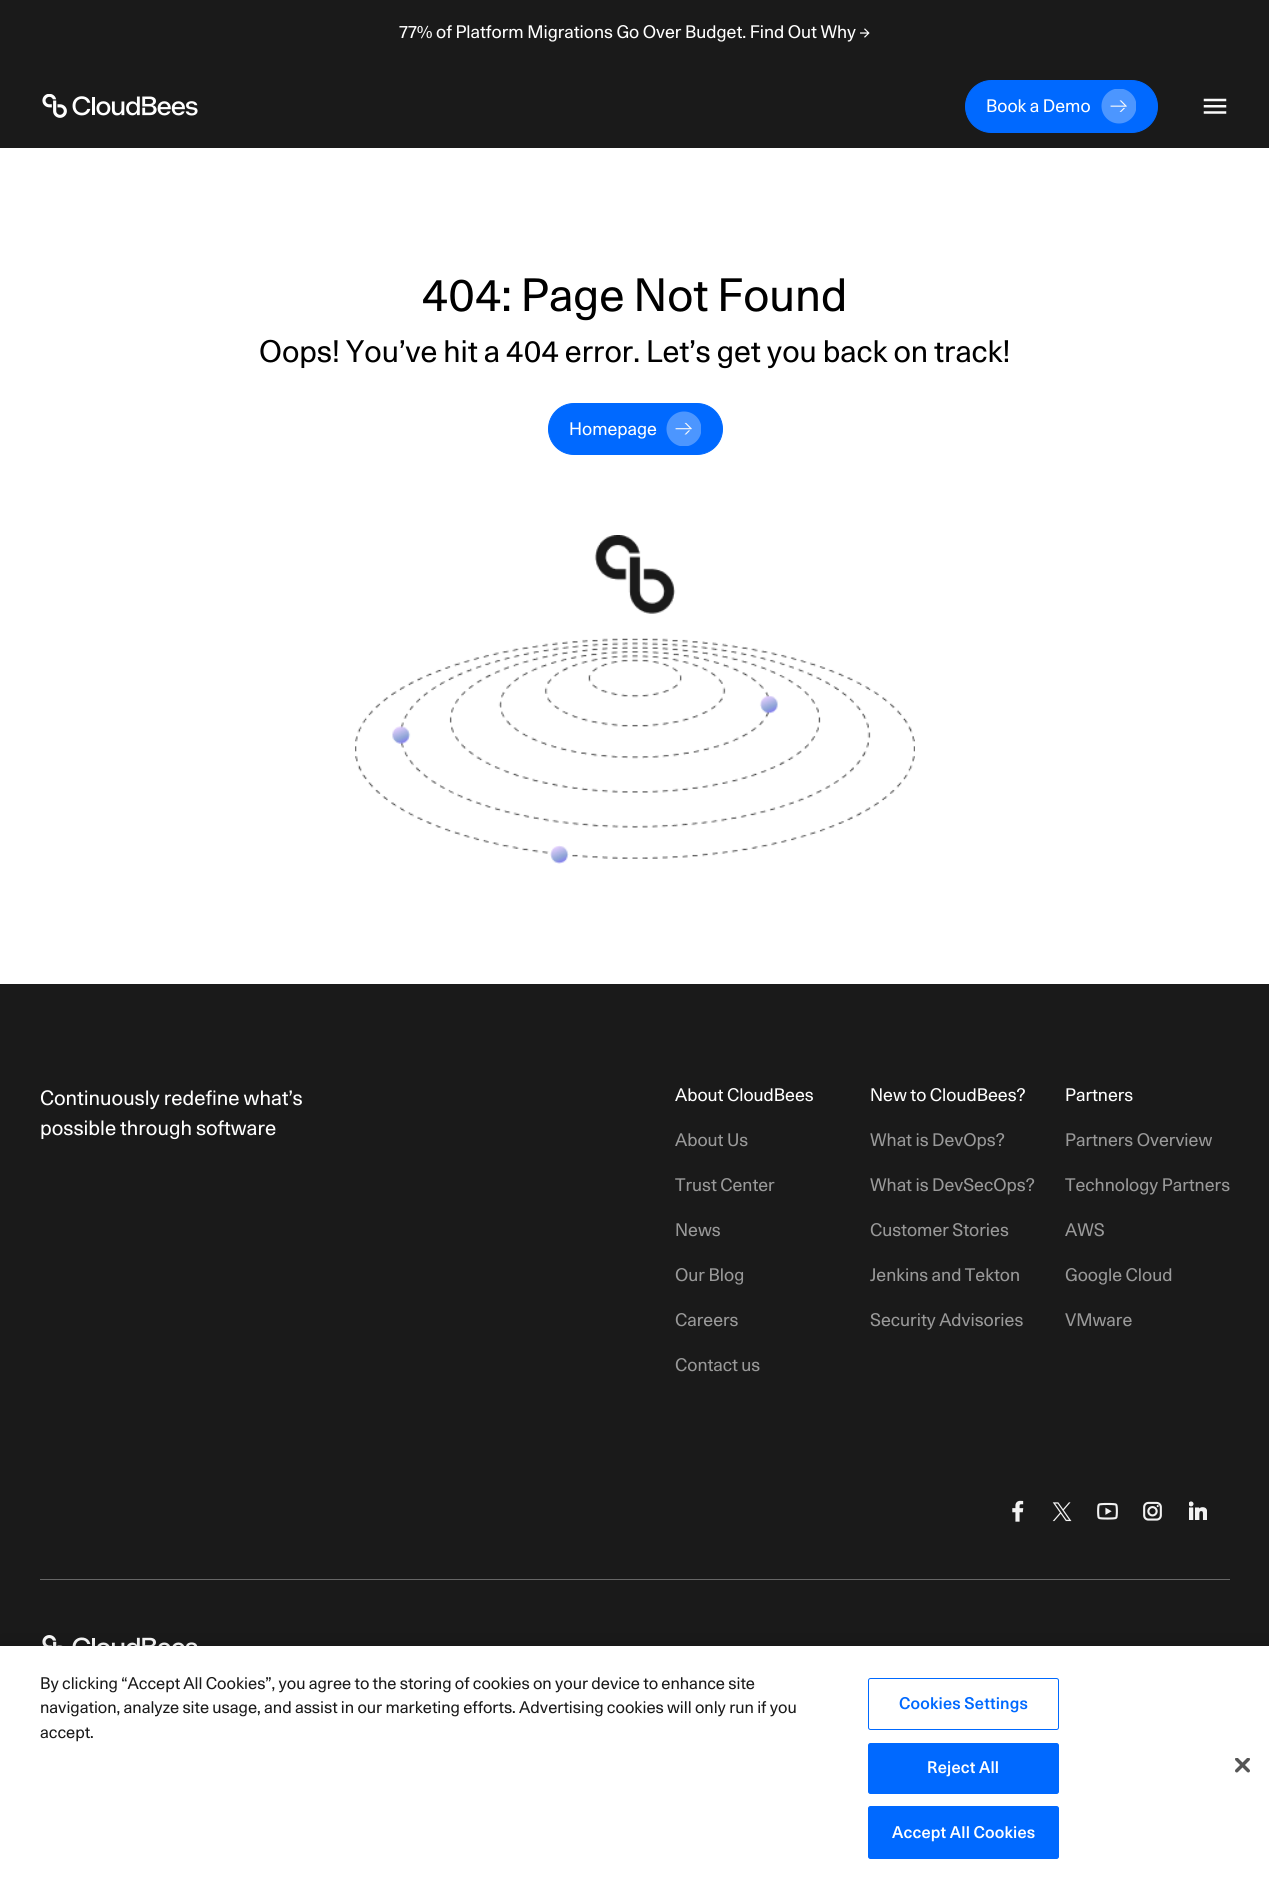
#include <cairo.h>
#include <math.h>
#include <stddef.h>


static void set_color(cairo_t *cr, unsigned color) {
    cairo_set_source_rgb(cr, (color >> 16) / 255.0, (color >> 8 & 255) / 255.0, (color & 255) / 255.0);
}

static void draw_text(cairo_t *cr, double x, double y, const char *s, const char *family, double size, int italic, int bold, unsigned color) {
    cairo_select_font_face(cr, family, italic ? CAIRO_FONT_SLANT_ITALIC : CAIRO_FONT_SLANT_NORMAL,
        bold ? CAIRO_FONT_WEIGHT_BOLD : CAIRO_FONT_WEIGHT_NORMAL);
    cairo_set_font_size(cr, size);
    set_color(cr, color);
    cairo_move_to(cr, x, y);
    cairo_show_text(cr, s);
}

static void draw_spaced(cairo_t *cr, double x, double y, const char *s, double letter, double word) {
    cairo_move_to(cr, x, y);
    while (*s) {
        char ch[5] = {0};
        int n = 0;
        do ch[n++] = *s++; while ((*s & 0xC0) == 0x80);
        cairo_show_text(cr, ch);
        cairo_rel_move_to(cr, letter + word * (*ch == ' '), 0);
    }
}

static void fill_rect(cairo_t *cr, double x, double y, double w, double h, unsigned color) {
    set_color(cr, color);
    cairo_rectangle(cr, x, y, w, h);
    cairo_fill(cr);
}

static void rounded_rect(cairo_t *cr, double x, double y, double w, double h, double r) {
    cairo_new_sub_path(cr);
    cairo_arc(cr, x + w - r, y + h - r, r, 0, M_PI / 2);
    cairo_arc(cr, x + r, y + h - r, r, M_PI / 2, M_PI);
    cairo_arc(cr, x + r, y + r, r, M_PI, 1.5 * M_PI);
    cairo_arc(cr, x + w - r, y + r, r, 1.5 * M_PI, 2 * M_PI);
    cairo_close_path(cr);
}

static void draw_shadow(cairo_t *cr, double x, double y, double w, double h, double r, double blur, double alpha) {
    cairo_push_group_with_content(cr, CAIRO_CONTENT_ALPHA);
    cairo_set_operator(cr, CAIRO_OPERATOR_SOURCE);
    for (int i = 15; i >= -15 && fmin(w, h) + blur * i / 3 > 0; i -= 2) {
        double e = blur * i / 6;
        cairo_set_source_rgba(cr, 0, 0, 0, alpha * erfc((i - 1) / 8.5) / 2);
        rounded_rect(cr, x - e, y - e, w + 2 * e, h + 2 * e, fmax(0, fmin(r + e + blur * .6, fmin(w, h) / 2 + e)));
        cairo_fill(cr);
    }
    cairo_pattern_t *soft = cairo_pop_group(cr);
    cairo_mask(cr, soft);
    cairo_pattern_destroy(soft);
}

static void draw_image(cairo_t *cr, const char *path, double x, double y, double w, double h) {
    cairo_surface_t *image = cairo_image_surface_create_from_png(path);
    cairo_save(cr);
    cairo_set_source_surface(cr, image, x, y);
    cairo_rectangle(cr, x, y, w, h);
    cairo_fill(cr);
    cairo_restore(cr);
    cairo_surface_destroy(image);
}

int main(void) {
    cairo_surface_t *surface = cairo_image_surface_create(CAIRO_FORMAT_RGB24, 1269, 1883);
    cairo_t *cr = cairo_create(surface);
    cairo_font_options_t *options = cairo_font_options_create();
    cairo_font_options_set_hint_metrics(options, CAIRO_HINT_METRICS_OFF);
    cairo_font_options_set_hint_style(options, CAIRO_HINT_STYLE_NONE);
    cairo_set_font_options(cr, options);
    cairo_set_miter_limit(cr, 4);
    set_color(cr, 0xFFFFFF);
    cairo_paint(cr);
    fill_rect(cr, 0, 0, 1269, 148, 0x1A1A1A);
    draw_text(cr, 399, 38, "77% of Platform Migrations Go Over Budget. Find Out Why →", "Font", 17.5, 0, 0, 0xFFFFFF);
    draw_image(cr, "assets/img1.png", 42, 94, 156, 24);
    set_color(cr, 0x0069FF);
    rounded_rect(cr, 965.5, 80.5, 192, 52, 26);
    cairo_fill_preserve(cr);
    cairo_set_line_width(cr, 1);
    cairo_stroke(cr);
    draw_text(cr, 986, 112, "Book a Demo", "Font", 17.5, 0, 0, 0xFFFFFF);
    draw_image(cr, "assets/img2.png", 1101, 89, 35, 35);
    draw_image(cr, "assets/img3.png", 1203, 98, 24, 16);
    draw_text(cr, 422, 311, "404: Page Not Found", "Font", 45, 0, 0, 0x000000);
    draw_text(cr, 259, 362, "Oops! You’ve hit a 404 error. Let’s get you back on track!", "Font", 30, 0, 0, 0x000000);
    set_color(cr, 0x0069FF);
    rounded_rect(cr, 548.5, 403.5, 174, 51, 25.5);
    cairo_fill_preserve(cr);
    cairo_stroke(cr);
    draw_text(cr, 569, 435, "Homepage", "Font", 17.5, 0, 0, 0xFFFFFF);
    draw_image(cr, "assets/img4.png", 666, 411, 35, 35);
    draw_image(cr, "assets/img5.png", 355, 535, 560, 329);
    fill_rect(cr, 0, 984, 1269, 662, 0x1A1A1A);
    draw_text(cr, 40, 1105, "Continuously redefine what’s", "Font", 20, 0, 0, 0xFFFFFF);
    draw_text(cr, 40, 1135, "possible through software", "Font", 20, 0, 0, 0xFFFFFF);
    draw_text(cr, 675, 1101, "About CloudBees", "Font", 17.5, 0, 0, 0xFFFFFF);
    draw_text(cr, 675, 1146, "About Us", "Font", 17.5, 0, 0, 0x999999);
    draw_text(cr, 675, 1191, "Trust Center", "Font", 17.5, 0, 0, 0x999999);
    draw_text(cr, 675, 1236, "News", "Font", 17.5, 0, 0, 0x999999);
    draw_text(cr, 675, 1281, "Our Blog", "Font", 17.5, 0, 0, 0x999999);
    draw_text(cr, 675, 1326, "Careers", "Font", 17.5, 0, 0, 0x999999);
    draw_text(cr, 675, 1371, "Contact us", "Font", 17.5, 0, 0, 0x999999);
    draw_text(cr, 870, 1101, "New to CloudBees?", "Font", 17.5, 0, 0, 0xFFFFFF);
    draw_text(cr, 870, 1146, "What is DevOps?", "Font", 17.5, 0, 0, 0x999999);
    draw_text(cr, 870, 1191, "What is DevSecOps?", "Font", 17.5, 0, 0, 0x999999);
    draw_text(cr, 870, 1236, "Customer Stories", "Font", 17.5, 0, 0, 0x999999);
    draw_text(cr, 870, 1281, "Jenkins and Tekton", "Font", 17.5, 0, 0, 0x999999);
    draw_text(cr, 870, 1326, "Security Advisories", "Font", 17.5, 0, 0, 0x999999);
    draw_text(cr, 1065, 1101, "Partners", "Font", 17.5, 0, 0, 0xFFFFFF);
    draw_text(cr, 1065, 1146, "Partners Overview", "Font", 17.5, 0, 0, 0x999999);
    draw_text(cr, 1065, 1191, "Technology Partners", "Font", 17.5, 0, 0, 0x999999);
    draw_text(cr, 1065, 1236, "AWS", "Font", 17.5, 0, 0, 0x999999);
    draw_text(cr, 1065, 1281, "Google Cloud", "Font", 17.5, 0, 0, 0x999999);
    draw_text(cr, 1065, 1326, "VMware", "Font", 17.5, 0, 0, 0x999999);
    draw_image(cr, "assets/img6.png", 1012, 1500, 12, 22);
    draw_image(cr, "assets/img7.png", 1052, 1502, 20, 20);
    draw_image(cr, "assets/img8.png", 1097, 1502, 21, 18);
    draw_image(cr, "assets/img9.png", 1143, 1501, 19, 20);
    draw_image(cr, "assets/img10.png", 1189, 1501, 18, 19);
    fill_rect(cr, 40, 1579, 1190, 1, 0x666666);
    draw_image(cr, "assets/img11.png", 42, 1635, 156, 11);
    set_color(cr, 0x000000);
    draw_shadow(cr, 0, 1646, 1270, 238, 0, 11, 0.2);
    fill_rect(cr, 0, 1646, 1269, 237, 0xFFFFFF);
    draw_text(cr, 40, 1689, "By clicking “Accept All Cookies”, you agree to the storing of cookies on your device to enhance site", "Font", 16.25, 0, 0, 0x1A1A1A);
    draw_text(cr, 40, 1713, "navigation, analyze site usage, and assist in our marketing efforts. Advertising cookies will only run if you", "Font", 16.25, 0, 0, 0x1A1A1A);
    draw_text(cr, 40, 1738, "accept.", "Font", 16.25, 0, 0, 0x1A1A1A);
    rounded_rect(cr, 868.5, 1678.5, 190, 51, 2);
    set_color(cr, 0x0069FF);
    cairo_stroke(cr);
    cairo_select_font_face(cr, "Font Medium", CAIRO_FONT_SLANT_NORMAL, CAIRO_FONT_WEIGHT_NORMAL);
    draw_spaced(cr, 899, 1709, "Cookies Settings", 0.2, 0);
    rounded_rect(cr, 868.5, 1743.5, 190, 50, 2);
    cairo_fill_preserve(cr);
    cairo_stroke(cr);
    set_color(cr, 0xFFFFFF);
    draw_spaced(cr, 927, 1773, "Reject All", 0.2, 0);
    set_color(cr, 0x0069FF);
    rounded_rect(cr, 868.5, 1806.5, 190, 52, 2);
    cairo_fill_preserve(cr);
    cairo_stroke(cr);
    set_color(cr, 0xFFFFFF);
    draw_spaced(cr, 892, 1838, "Accept All Cookies", 0.2, 0);
    draw_image(cr, "assets/img12.png", 1235, 1758, 15, 15);
    cairo_surface_write_to_png(surface, "output.png");
    cairo_font_options_destroy(options);
    cairo_destroy(cr);
    cairo_surface_destroy(surface);
    return 0;
}
